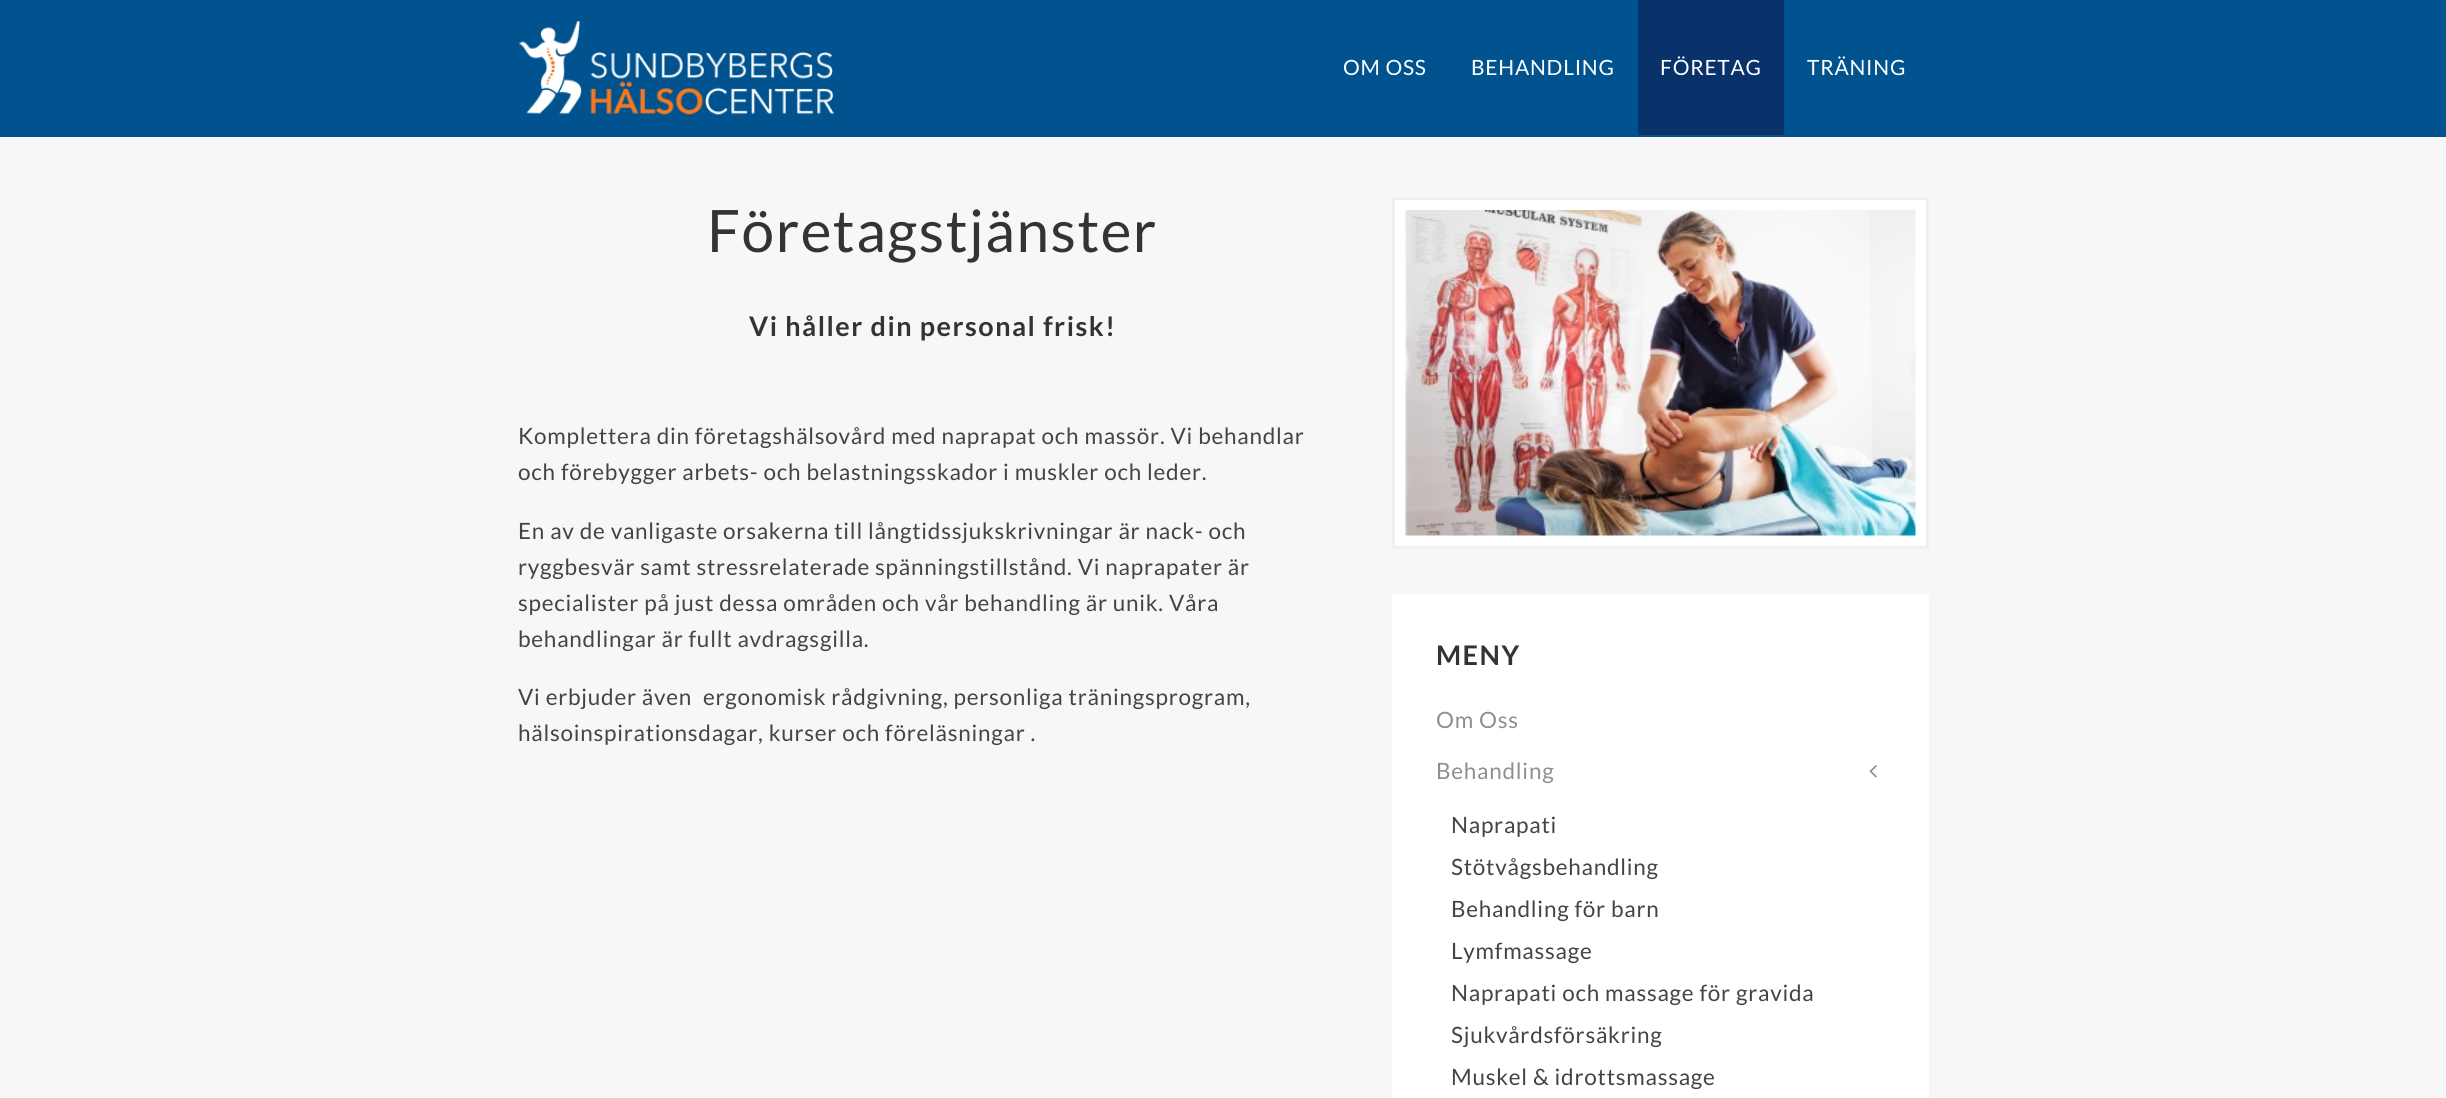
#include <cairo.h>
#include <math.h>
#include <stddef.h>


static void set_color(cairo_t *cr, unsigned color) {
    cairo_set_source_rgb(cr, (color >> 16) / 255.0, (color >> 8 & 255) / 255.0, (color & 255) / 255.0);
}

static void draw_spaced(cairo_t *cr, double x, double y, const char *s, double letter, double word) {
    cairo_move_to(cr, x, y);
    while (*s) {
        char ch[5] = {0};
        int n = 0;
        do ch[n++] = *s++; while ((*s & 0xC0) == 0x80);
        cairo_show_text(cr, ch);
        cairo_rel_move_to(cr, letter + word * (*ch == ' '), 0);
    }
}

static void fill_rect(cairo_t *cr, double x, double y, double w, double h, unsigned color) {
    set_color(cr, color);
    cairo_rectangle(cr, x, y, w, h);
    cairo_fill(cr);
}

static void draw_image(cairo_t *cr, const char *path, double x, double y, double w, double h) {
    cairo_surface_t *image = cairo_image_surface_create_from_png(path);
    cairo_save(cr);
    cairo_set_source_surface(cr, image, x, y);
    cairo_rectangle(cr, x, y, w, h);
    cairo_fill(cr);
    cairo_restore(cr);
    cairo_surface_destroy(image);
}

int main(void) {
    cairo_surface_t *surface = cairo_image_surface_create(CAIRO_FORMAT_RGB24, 2446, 1098);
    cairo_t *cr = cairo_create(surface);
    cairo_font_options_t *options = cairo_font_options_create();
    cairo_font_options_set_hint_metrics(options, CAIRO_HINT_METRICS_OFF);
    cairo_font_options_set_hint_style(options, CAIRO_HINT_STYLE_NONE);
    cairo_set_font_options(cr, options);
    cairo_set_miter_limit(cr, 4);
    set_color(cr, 0xF7F7F7);
    cairo_paint(cr);
    fill_rect(cr, 0, 0, 2446, 135, 0x00538E);
    fill_rect(cr, 0, 135, 2446, 2, 0x055288);
    draw_image(cr, "assets/img1.png", 519, 21, 315, 94);
    cairo_select_font_face(cr, "Lato", CAIRO_FONT_SLANT_NORMAL, CAIRO_FONT_WEIGHT_NORMAL);
    cairo_set_font_size(cr, 21);
    set_color(cr, 0xFFFFFF);
    draw_spaced(cr, 1343, 75, "OM OSS", 0.75, 0);
    draw_spaced(cr, 1471, 75, "BEHANDLING", 0.75, 0);
    fill_rect(cr, 1638, 0, 146, 135, 0x09326A);
    set_color(cr, 0xFFFFFF);
    draw_spaced(cr, 1660, 75, "FÖRETAG", 0.75, 0);
    draw_spaced(cr, 1807, 75, "TRÄNING", 0.75, 0);
    cairo_set_font_size(cr, 58.5);
    set_color(cr, 0x333333);
    draw_spaced(cr, 707, 252, "Företagstjänster", 1.5, 0);
    cairo_select_font_face(cr, "Lato", CAIRO_FONT_SLANT_NORMAL, CAIRO_FONT_WEIGHT_BOLD);
    cairo_set_font_size(cr, 27);
    draw_spaced(cr, 749, 336, "Vi håller din personal frisk!", 1.5, 0);
    cairo_select_font_face(cr, "Lato", CAIRO_FONT_SLANT_NORMAL, CAIRO_FONT_WEIGHT_NORMAL);
    cairo_set_font_size(cr, 22.5);
    set_color(cr, 0x444444);
    draw_spaced(cr, 518, 444, "Komplettera din företagshälsovård med naprapat och massör. Vi behandlar", 0.75, 0);
    draw_spaced(cr, 518, 480, "och förebygger arbets- och belastningsskador i muskler och leder.", 0.75, 0);
    draw_spaced(cr, 518, 539, "En av de vanligaste orsakerna till långtidssjukskrivningar är nack- och", 0.75, 0);
    draw_spaced(cr, 518, 575, "ryggbesvär samt stressrelaterade spänningstillstånd. Vi naprapater är", 0.75, 0);
    draw_spaced(cr, 518, 611, "specialister på just dessa områden och vår behandling är unik. Våra", 0.75, 0);
    draw_spaced(cr, 518, 647, "behandlingar är fullt avdragsgilla.", 0.75, 0);
    draw_spaced(cr, 518, 705, "Vi erbjuder även", 0.75, 0);
    draw_spaced(cr, 703, 705, "ergonomisk rådgivning, personliga träningsprogram,", 0.75, 0);
    draw_spaced(cr, 518, 741, "hälsoinspirationsdagar, kurser och föreläsningar .", 0.75, 0);
    set_color(cr, 0xFFFFFF);
    cairo_rectangle(cr, 1393.5, 198.5, 534, 349);
    cairo_fill_preserve(cr);
    set_color(cr, 0xF0F0F0);
    cairo_set_line_width(cr, 3);
    cairo_stroke(cr);
    draw_image(cr, "assets/img2.png", 1405, 210, 511, 326);
    fill_rect(cr, 1392, 594, 537, 504, 0xFFFFFF);
    cairo_select_font_face(cr, "Lato", CAIRO_FONT_SLANT_NORMAL, CAIRO_FONT_WEIGHT_BOLD);
    cairo_set_font_size(cr, 27);
    set_color(cr, 0x333333);
    draw_spaced(cr, 1436, 665, "MENY", 1.5, 0);
    cairo_select_font_face(cr, "Lato", CAIRO_FONT_SLANT_NORMAL, CAIRO_FONT_WEIGHT_NORMAL);
    cairo_set_font_size(cr, 22.5);
    set_color(cr, 0x8F8F8F);
    draw_spaced(cr, 1436, 728, "Om Oss", 0.75, 0);
    draw_spaced(cr, 1436, 779, "Behandling", 0.75, 0);
    draw_image(cr, "assets/img3.png", 1869, 765, 8, 13);
    set_color(cr, 0x444444);
    draw_spaced(cr, 1451, 833, "Naprapati", 0.75, 0);
    draw_spaced(cr, 1451, 875, "Stötvågsbehandling", 0.75, 0);
    draw_spaced(cr, 1451, 917, "Behandling för barn", 0.75, 0);
    draw_spaced(cr, 1451, 959, "Lymfmassage", 0.75, 0);
    draw_spaced(cr, 1451, 1001, "Naprapati och massage för gravida", 0.75, 0);
    draw_spaced(cr, 1451, 1043, "Sjukvårdsförsäkring", 0.75, 0);
    draw_spaced(cr, 1451, 1085, "Muskel & idrottsmassage", 0.75, 0);
    cairo_surface_write_to_png(surface, "output.png");
    cairo_font_options_destroy(options);
    cairo_destroy(cr);
    cairo_surface_destroy(surface);
    return 0;
}
